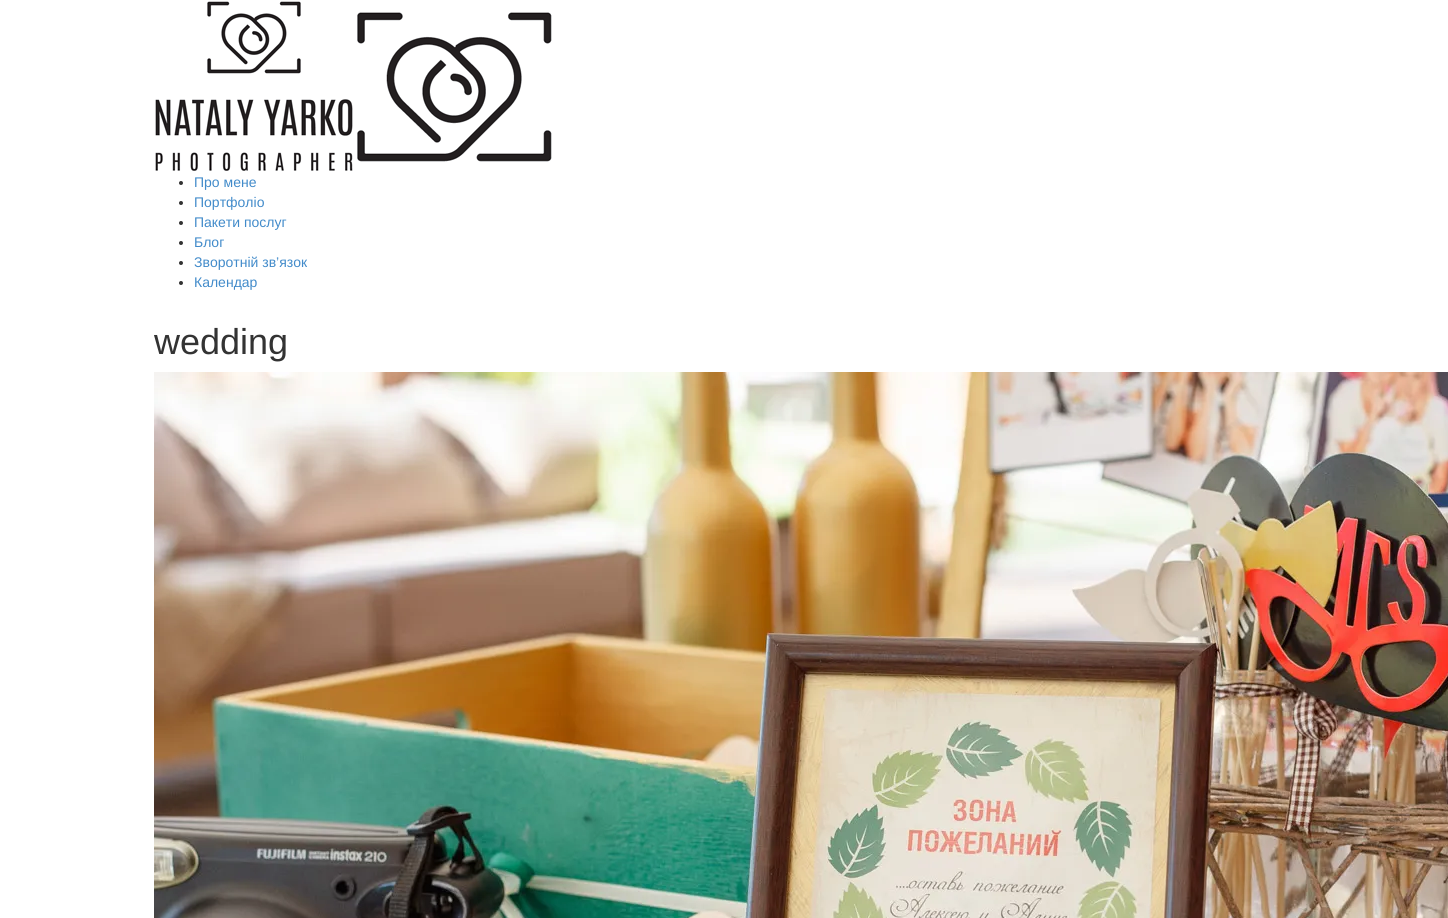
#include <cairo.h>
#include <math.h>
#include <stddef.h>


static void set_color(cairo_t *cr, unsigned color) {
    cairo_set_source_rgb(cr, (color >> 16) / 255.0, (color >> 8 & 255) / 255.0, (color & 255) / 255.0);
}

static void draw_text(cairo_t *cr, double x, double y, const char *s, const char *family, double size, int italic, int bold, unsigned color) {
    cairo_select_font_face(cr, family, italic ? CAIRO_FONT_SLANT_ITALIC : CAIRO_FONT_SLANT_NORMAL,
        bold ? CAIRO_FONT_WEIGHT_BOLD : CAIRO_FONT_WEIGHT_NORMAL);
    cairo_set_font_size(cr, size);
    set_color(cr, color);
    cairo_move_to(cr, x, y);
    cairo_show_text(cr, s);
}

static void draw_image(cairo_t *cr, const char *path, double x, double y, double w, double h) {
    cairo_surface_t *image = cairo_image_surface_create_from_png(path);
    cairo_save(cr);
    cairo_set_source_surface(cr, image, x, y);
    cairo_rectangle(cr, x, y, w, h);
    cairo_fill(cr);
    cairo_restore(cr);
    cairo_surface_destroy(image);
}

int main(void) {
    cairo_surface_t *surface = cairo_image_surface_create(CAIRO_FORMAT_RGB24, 1448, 918);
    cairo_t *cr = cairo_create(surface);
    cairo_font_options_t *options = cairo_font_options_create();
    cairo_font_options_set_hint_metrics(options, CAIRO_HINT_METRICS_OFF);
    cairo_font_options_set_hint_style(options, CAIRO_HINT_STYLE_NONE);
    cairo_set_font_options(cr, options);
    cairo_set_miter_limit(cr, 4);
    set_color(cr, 0xFFFFFF);
    cairo_paint(cr);
    draw_image(cr, "assets/img1.png", 155, 1, 198, 170);
    draw_image(cr, "assets/img2.png", 357, 12, 195, 150);
    set_color(cr, 0x333333);
    cairo_arc(cr, 181, 183, 2, 0, 2 * M_PI);
    cairo_fill(cr);
    draw_text(cr, 194, 187, "Про мене", "Liberation Sans", 14, 0, 0, 0x428BCA);
    set_color(cr, 0x333333);
    cairo_new_path(cr);
    cairo_arc(cr, 181, 203, 2, 0, 2 * M_PI);
    cairo_fill(cr);
    draw_text(cr, 194, 207, "Портфоліо", "Liberation Sans", 14, 0, 0, 0x428BCA);
    set_color(cr, 0x333333);
    cairo_new_path(cr);
    cairo_arc(cr, 181, 223, 2, 0, 2 * M_PI);
    cairo_fill(cr);
    draw_text(cr, 194, 227, "Пакети послуг", "Liberation Sans", 14, 0, 0, 0x428BCA);
    set_color(cr, 0x333333);
    cairo_new_path(cr);
    cairo_arc(cr, 181, 243, 2, 0, 2 * M_PI);
    cairo_fill(cr);
    draw_text(cr, 194, 247, "Блог", "Liberation Sans", 14, 0, 0, 0x428BCA);
    set_color(cr, 0x333333);
    cairo_new_path(cr);
    cairo_arc(cr, 181, 263, 2, 0, 2 * M_PI);
    cairo_fill(cr);
    draw_text(cr, 194, 267, "Зворотній зв’язок", "Liberation Sans", 14, 0, 0, 0x428BCA);
    set_color(cr, 0x333333);
    cairo_new_path(cr);
    cairo_arc(cr, 181, 283, 2, 0, 2 * M_PI);
    cairo_fill(cr);
    draw_text(cr, 194, 287, "Календар", "Liberation Sans", 14, 0, 0, 0x428BCA);
    draw_text(cr, 154, 354, "wedding", "Liberation Sans", 36, 0, 0, 0x333333);
    draw_image(cr, "assets/img3.png", 154, 372, 1294, 546);
    cairo_surface_write_to_png(surface, "output.png");
    cairo_font_options_destroy(options);
    cairo_destroy(cr);
    cairo_surface_destroy(surface);
    return 0;
}
